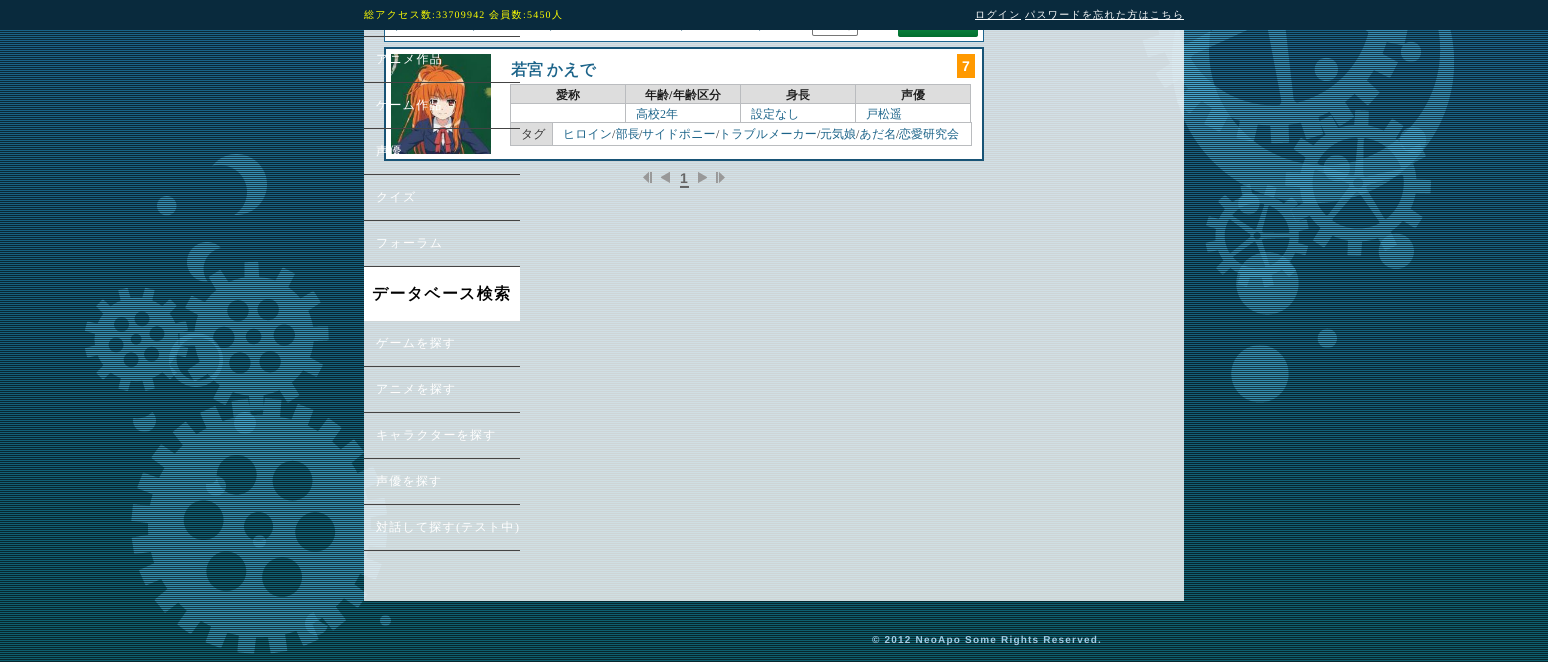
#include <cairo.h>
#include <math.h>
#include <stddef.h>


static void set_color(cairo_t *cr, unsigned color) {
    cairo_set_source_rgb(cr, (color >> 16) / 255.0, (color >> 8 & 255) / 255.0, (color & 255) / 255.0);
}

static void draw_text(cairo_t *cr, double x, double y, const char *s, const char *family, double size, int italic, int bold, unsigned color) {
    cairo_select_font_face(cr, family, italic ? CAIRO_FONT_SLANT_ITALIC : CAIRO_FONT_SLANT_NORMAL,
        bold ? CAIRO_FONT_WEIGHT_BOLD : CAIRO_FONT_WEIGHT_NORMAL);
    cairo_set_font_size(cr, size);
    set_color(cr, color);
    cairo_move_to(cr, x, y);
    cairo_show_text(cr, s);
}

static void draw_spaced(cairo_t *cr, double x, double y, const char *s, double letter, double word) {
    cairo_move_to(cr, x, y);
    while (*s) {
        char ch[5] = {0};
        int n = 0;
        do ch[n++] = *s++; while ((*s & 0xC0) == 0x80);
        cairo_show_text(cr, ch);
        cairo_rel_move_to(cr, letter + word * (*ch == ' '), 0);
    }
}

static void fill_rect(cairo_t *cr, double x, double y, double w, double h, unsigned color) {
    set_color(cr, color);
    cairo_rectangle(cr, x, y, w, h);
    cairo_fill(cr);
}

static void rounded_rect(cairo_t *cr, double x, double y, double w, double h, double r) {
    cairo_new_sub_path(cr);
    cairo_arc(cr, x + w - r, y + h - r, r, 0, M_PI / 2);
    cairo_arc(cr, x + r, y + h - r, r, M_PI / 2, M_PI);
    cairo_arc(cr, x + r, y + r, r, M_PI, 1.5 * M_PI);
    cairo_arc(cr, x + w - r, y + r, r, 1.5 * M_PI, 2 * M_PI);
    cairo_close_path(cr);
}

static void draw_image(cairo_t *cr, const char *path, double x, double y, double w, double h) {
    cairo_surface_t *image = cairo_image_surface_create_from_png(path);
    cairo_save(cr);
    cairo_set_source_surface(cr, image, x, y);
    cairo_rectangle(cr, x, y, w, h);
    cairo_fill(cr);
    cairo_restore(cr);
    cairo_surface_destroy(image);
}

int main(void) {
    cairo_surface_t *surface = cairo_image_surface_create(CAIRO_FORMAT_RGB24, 1548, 662);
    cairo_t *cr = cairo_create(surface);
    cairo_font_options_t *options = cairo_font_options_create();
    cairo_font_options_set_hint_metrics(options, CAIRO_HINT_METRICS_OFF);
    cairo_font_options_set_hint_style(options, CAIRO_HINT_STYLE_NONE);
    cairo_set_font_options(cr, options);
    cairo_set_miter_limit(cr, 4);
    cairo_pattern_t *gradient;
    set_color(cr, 0xFFFFFF);
    cairo_paint(cr);
    gradient = cairo_pattern_create_linear(774, -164, 774, 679);
    cairo_pattern_add_color_stop_rgba(gradient, 0, 0.118, 0.392, 0.565, 1);
    cairo_pattern_add_color_stop_rgba(gradient, 1, 0.051, 0.369, 0.427, 1);
    cairo_set_source(cr, gradient);
    cairo_pattern_destroy(gradient);
    cairo_rectangle(cr, 0, 30, 1548, 632);
    cairo_fill(cr);
    draw_image(cr, "assets/img1.png", 1142, 30, 312, 373);
    draw_image(cr, "assets/img2.png", 85, 154, 306, 500);
    draw_image(cr, "assets/img3.png", 0, 31, 1548, 631);
    cairo_set_source_rgba(cr, 1, 1, 1, 0.8);
    cairo_rectangle(cr, 364, 30, 820, 571);
    cairo_fill(cr);
    fill_rect(cr, 385, 30, 598, 11, 0xFFFFFF);
    rounded_rect(cr, 812.5, 18.5, 45, 17, 1.5);
    set_color(cr, 0x767676);
    cairo_set_line_width(cr, 1);
    cairo_stroke(cr);
    cairo_new_path(cr);
    cairo_move_to(cr, 845, 25);
    cairo_line_to(cr, 849, 29);
    cairo_line_to(cr, 853, 25);
    set_color(cr, 0x000000);
    cairo_set_line_width(cr, 2);
    cairo_stroke(cr);
    gradient = cairo_pattern_create_linear(938, 18, 938, 37);
    cairo_pattern_add_color_stop_rgba(gradient, 0, 0.086, 0.6, 0.302, 1);
    cairo_pattern_add_color_stop_rgba(gradient, 1, 0, 0.431, 0.18, 1);
    cairo_set_source(cr, gradient);
    cairo_pattern_destroy(gradient);
    rounded_rect(cr, 898, 18, 80, 19, 2);
    cairo_fill(cr);
    fill_rect(cr, 0, 0, 1548, 30, 0x092A3D);
    cairo_select_font_face(cr, "WenQuanYi Zen Hei Medium", CAIRO_FONT_SLANT_NORMAL, CAIRO_FONT_WEIGHT_NORMAL);
    cairo_set_font_size(cr, 10);
    set_color(cr, 0xFFFF00);
    draw_spaced(cr, 364, 18, "総アクセス数", 1.2, 0);
    cairo_select_font_face(cr, "Liberation Serif", CAIRO_FONT_SLANT_NORMAL, CAIRO_FONT_WEIGHT_NORMAL);
    draw_spaced(cr, 432, 18, ":33709942", 1.2, 0);
    cairo_select_font_face(cr, "WenQuanYi Zen Hei Medium", CAIRO_FONT_SLANT_NORMAL, CAIRO_FONT_WEIGHT_NORMAL);
    draw_spaced(cr, 489, 18, "会員数", 1.2, 0);
    cairo_select_font_face(cr, "Liberation Serif", CAIRO_FONT_SLANT_NORMAL, CAIRO_FONT_WEIGHT_NORMAL);
    draw_spaced(cr, 523, 18, ":5450", 1.2, 0);
    cairo_select_font_face(cr, "WenQuanYi Zen Hei Medium", CAIRO_FONT_SLANT_NORMAL, CAIRO_FONT_WEIGHT_NORMAL);
    draw_spaced(cr, 552, 18, "人", 1.2, 0);
    fill_rect(cr, 975, 19, 46, 1, 0xFFFFFF);
    draw_spaced(cr, 975, 18, "ログイン", 1.2, 0);
    fill_rect(cr, 1025, 19, 159, 1, 0xFFFFFF);
    draw_spaced(cr, 1025, 18, "パスワードを忘れた方はこちら", 1.2, 0);
    fill_rect(cr, 983, 30, 1, 12, 0x1D648E);
    fill_rect(cr, 384, 41, 600, 1, 0x1D648E);
    fill_rect(cr, 384, 30, 1, 12, 0x1D648E);
    fill_rect(cr, 364, 36, 156, 1, 0x444444);
    set_color(cr, 0xFFFFFF);
    cairo_rectangle(cr, 385, 48, 598, 112);
    cairo_fill_preserve(cr);
    set_color(cr, 0x185476);
    cairo_stroke(cr);
    draw_image(cr, "assets/img5.png", 391, 54, 100, 100);
    fill_rect(cr, 364, 82, 156, 1, 0x444444);
    cairo_set_font_size(cr, 12);
    set_color(cr, 0xFFFFFF);
    draw_spaced(cr, 376, 63, "アニメ作品", 1.2, 0);
    fill_rect(cr, 511, 123, 41, 22, 0xDDDDDD);
    fill_rect(cr, 510, 84, 1, 39, 0xBABCBF);
    cairo_rectangle(cr, 510.5, 122.5, 46, 23);
    cairo_set_line_width(cr, 1);
    cairo_stroke(cr);
    fill_rect(cr, 364, 128, 156, 1, 0x444444);
    set_color(cr, 0xFFFFFF);
    draw_spaced(cr, 376, 109, "ゲーム作品", 1.2, 0);
    fill_rect(cr, 364, 174, 156, 1, 0x444444);
    set_color(cr, 0xFFFFFF);
    draw_spaced(cr, 376, 155, "声優", 1.2, 0);
    fill_rect(cr, 364, 220, 156, 1, 0x444444);
    set_color(cr, 0xFFFFFF);
    draw_spaced(cr, 376, 201, "クイズ", 1.2, 0);
    fill_rect(cr, 364, 266, 156, 1, 0x444444);
    set_color(cr, 0xFFFFFF);
    draw_spaced(cr, 376, 247, "フォーラム", 1.2, 0);
    fill_rect(cr, 364, 267, 156, 54, 0xFFFFFF);
    cairo_select_font_face(cr, "WenQuanYi Zen Hei", CAIRO_FONT_SLANT_NORMAL, CAIRO_FONT_WEIGHT_BOLD);
    cairo_set_font_size(cr, 16);
    set_color(cr, 0x000000);
    draw_spaced(cr, 372, 299, "データベース検索", 1.2, 0);
    fill_rect(cr, 364, 366, 156, 1, 0x444444);
    cairo_select_font_face(cr, "WenQuanYi Zen Hei Medium", CAIRO_FONT_SLANT_NORMAL, CAIRO_FONT_WEIGHT_NORMAL);
    cairo_set_font_size(cr, 12);
    set_color(cr, 0xFFFFFF);
    draw_spaced(cr, 376, 347, "ゲームを探す", 1.2, 0);
    fill_rect(cr, 364, 412, 156, 1, 0x444444);
    set_color(cr, 0xFFFFFF);
    draw_spaced(cr, 376, 393, "アニメを探す", 1.2, 0);
    fill_rect(cr, 364, 458, 156, 1, 0x444444);
    set_color(cr, 0xFFFFFF);
    draw_spaced(cr, 376, 439, "キャラクターを探す", 1.2, 0);
    fill_rect(cr, 364, 504, 156, 1, 0x444444);
    set_color(cr, 0xFFFFFF);
    draw_spaced(cr, 376, 485, "声優を探す", 1.2, 0);
    fill_rect(cr, 364, 550, 156, 1, 0x444444);
    set_color(cr, 0xFFFFFF);
    draw_spaced(cr, 376, 531, "対話して探す", 1.2, 0);
    cairo_select_font_face(cr, "Liberation Serif", CAIRO_FONT_SLANT_NORMAL, CAIRO_FONT_WEIGHT_NORMAL);
    draw_spaced(cr, 456, 531, "(", 1.2, 0);
    cairo_select_font_face(cr, "WenQuanYi Zen Hei Medium", CAIRO_FONT_SLANT_NORMAL, CAIRO_FONT_WEIGHT_NORMAL);
    draw_spaced(cr, 461, 531, "テスト中", 1.2, 0);
    cairo_select_font_face(cr, "Liberation Serif", CAIRO_FONT_SLANT_NORMAL, CAIRO_FONT_WEIGHT_NORMAL);
    draw_spaced(cr, 515, 531, ")", 1.2, 0);
    draw_image(cr, "assets/img4.png", 396, 30, 2, 1);
    draw_image(cr, "assets/img4.png", 473, 30, 2, 1);
    draw_image(cr, "assets/img4.png", 550, 30, 2, 1);
    draw_image(cr, "assets/img4.png", 681, 30, 2, 1);
    draw_image(cr, "assets/img4.png", 759, 30, 2, 1);
    cairo_select_font_face(cr, "WenQuanYi Zen Hei", CAIRO_FONT_SLANT_NORMAL, CAIRO_FONT_WEIGHT_BOLD);
    cairo_set_font_size(cr, 16);
    set_color(cr, 0x1B6389);
    draw_spaced(cr, 511, 75, "若宮 かえで", 0, -1);
    fill_rect(cr, 957, 54, 18, 24, 0xFF9900);
    draw_text(cr, 962, 71, "7", "Liberation Sans", 14, 0, 1, 0xFFFFFF);
    fill_rect(cr, 511, 85, 459, 18, 0xDDDDDD);
    fill_rect(cr, 511, 84, 460, 1, 0xBABCBF);
    fill_rect(cr, 625, 84, 1, 39, 0xBABCBF);
    fill_rect(cr, 511, 103, 115, 1, 0xBABCBF);
    draw_text(cr, 556, 99, "愛称", "WenQuanYi Zen Hei", 12, 0, 1, 0x1A1A1A);
    fill_rect(cr, 740, 84, 1, 39, 0xBABCBF);
    fill_rect(cr, 626, 103, 115, 1, 0xBABCBF);
    draw_text(cr, 645, 99, "年齢", "WenQuanYi Zen Hei", 12, 0, 1, 0x1A1A1A);
    draw_text(cr, 669, 99, "/", "Liberation Serif", 12, 0, 1, 0x1A1A1A);
    draw_text(cr, 673, 99, "年齢区分", "WenQuanYi Zen Hei", 12, 0, 1, 0x1A1A1A);
    fill_rect(cr, 855, 84, 1, 39, 0xBABCBF);
    fill_rect(cr, 741, 103, 115, 1, 0xBABCBF);
    draw_text(cr, 786, 99, "身長", "WenQuanYi Zen Hei", 12, 0, 1, 0x1A1A1A);
    fill_rect(cr, 970, 84, 1, 39, 0xBABCBF);
    fill_rect(cr, 856, 103, 115, 1, 0xBABCBF);
    draw_text(cr, 901, 99, "声優", "WenQuanYi Zen Hei", 12, 0, 1, 0x1A1A1A);
    draw_text(cr, 636, 118, "高校", "WenQuanYi Zen Hei Medium", 12, 0, 0, 0x1B6389);
    draw_text(cr, 660, 118, "2", "Liberation Serif", 12, 0, 0, 0x1B6389);
    draw_text(cr, 666, 118, "年", "WenQuanYi Zen Hei Medium", 12, 0, 0, 0x1B6389);
    draw_text(cr, 751, 118, "設定なし", "WenQuanYi Zen Hei Medium", 12, 0, 0, 0x1B6389);
    draw_text(cr, 866, 118, "戸松遥", "WenQuanYi Zen Hei Medium", 12, 0, 0, 0x1B6389);
    draw_text(cr, 521, 138, "タグ", "WenQuanYi Zen Hei Medium", 12, 0, 0, 0x333333);
    fill_rect(cr, 556, 123, 1, 22, 0xFFFFFF);
    cairo_rectangle(cr, 552.5, 122.5, 419, 23);
    set_color(cr, 0xBABCBF);
    cairo_stroke(cr);
    draw_text(cr, 563, 138, "ヒロイン 部長", "WenQuanYi Zen Hei Medium", 12, 0, 0, 0x1B6389);
    draw_text(cr, 639, 138, "/", "Liberation Serif", 12, 0, 0, 0x333333);
    draw_text(cr, 642, 138, "サイドポニー トラブルメーカー", "WenQuanYi Zen Hei Medium", 12, 0, 0, 0x1B6389);
    draw_text(cr, 817, 138, "/", "Liberation Serif", 12, 0, 0, 0x333333);
    draw_text(cr, 820, 138, "元気娘 あだ名", "WenQuanYi Zen Hei Medium", 12, 0, 0, 0x1B6389);
    draw_text(cr, 896, 138, "/", "Liberation Serif", 12, 0, 0, 0x333333);
    draw_text(cr, 899, 138, "恋愛研究会", "WenQuanYi Zen Hei Medium", 12, 0, 0, 0x1B6389);
    draw_text(cr, 612, 138, "/", "Liberation Serif", 12, 0, 0, 0x333333);
    draw_text(cr, 716, 138, "/", "Liberation Serif", 12, 0, 0, 0x333333);
    draw_text(cr, 856, 138, "/", "Liberation Serif", 12, 0, 0, 0x333333);
    draw_image(cr, "assets/img6.png", 643, 172, 9, 11);
    draw_image(cr, "assets/img7.png", 661, 172, 9, 11);
    cairo_select_font_face(cr, "Liberation Sans", CAIRO_FONT_SLANT_NORMAL, CAIRO_FONT_WEIGHT_BOLD);
    cairo_set_font_size(cr, 14);
    set_color(cr, 0x666666);
    draw_spaced(cr, 680, 183, "1", 1.2, 0);
    fill_rect(cr, 680, 186, 9, 2, 0x666666);
    draw_image(cr, "assets/img8.png", 698, 172, 9, 11);
    draw_image(cr, "assets/img9.png", 716, 172, 9, 11);
    cairo_set_font_size(cr, 10);
    set_color(cr, 0xA2CEE6);
    draw_spaced(cr, 872, 643, "© 2012 NeoApo Some Rights Reserved.", 1.2, 0);
    cairo_surface_write_to_png(surface, "output.png");
    cairo_font_options_destroy(options);
    cairo_destroy(cr);
    cairo_surface_destroy(surface);
    return 0;
}
